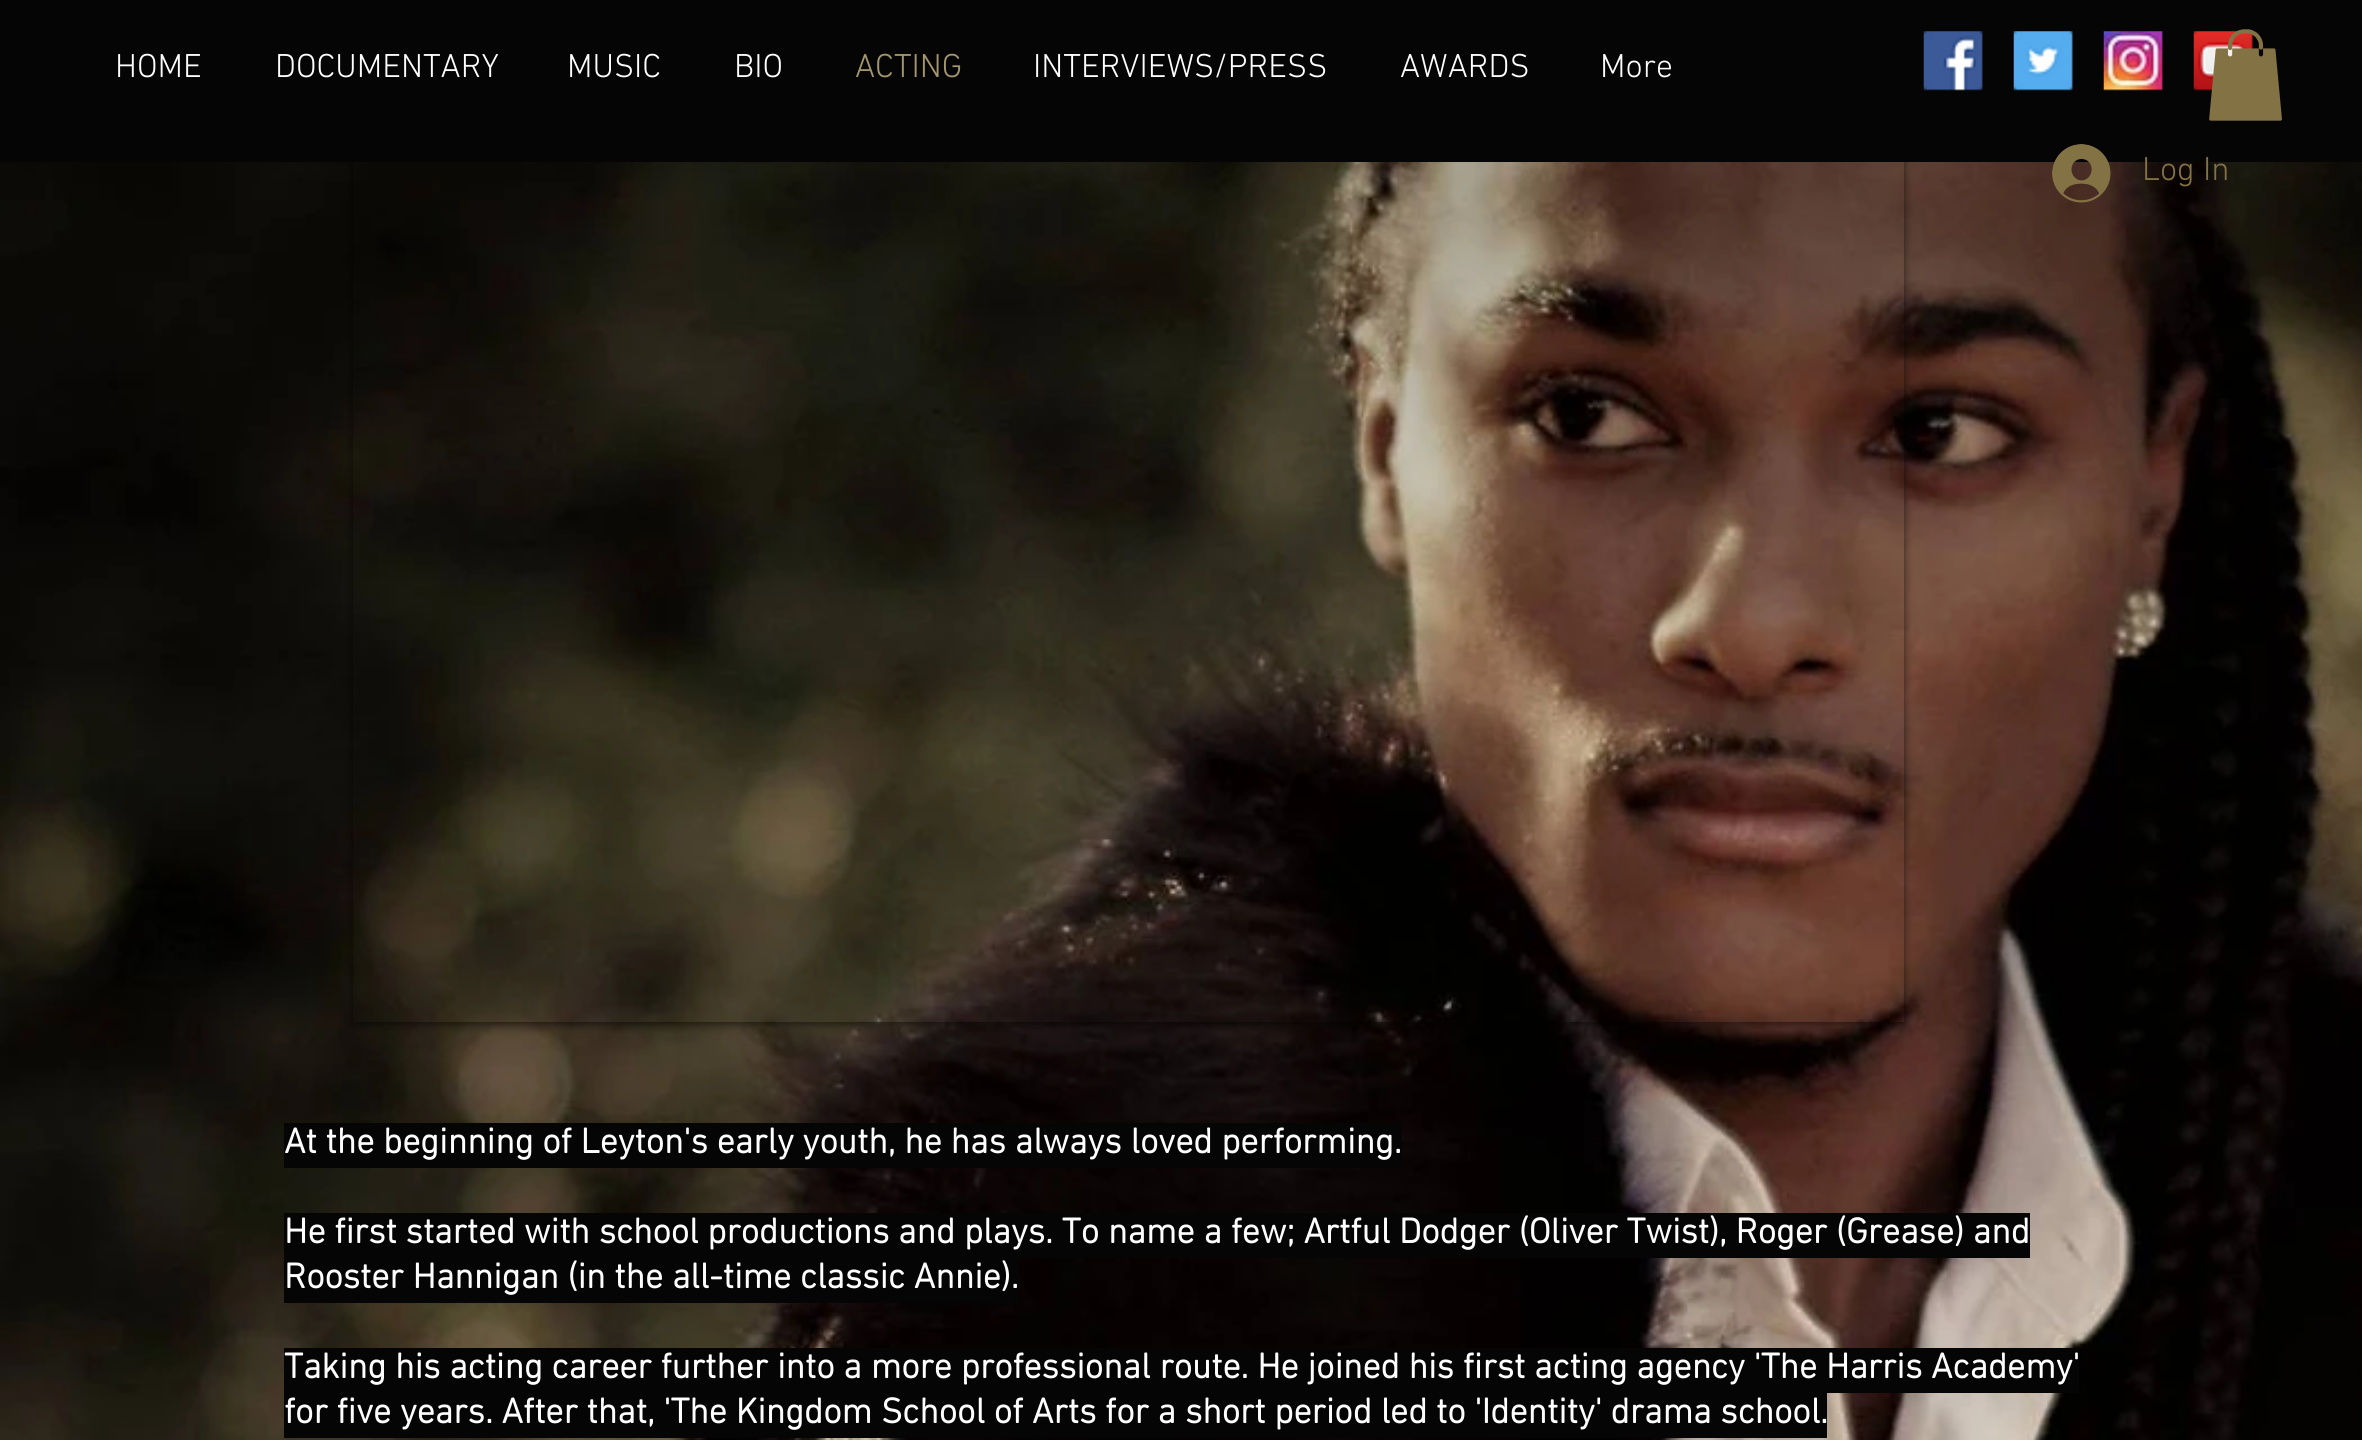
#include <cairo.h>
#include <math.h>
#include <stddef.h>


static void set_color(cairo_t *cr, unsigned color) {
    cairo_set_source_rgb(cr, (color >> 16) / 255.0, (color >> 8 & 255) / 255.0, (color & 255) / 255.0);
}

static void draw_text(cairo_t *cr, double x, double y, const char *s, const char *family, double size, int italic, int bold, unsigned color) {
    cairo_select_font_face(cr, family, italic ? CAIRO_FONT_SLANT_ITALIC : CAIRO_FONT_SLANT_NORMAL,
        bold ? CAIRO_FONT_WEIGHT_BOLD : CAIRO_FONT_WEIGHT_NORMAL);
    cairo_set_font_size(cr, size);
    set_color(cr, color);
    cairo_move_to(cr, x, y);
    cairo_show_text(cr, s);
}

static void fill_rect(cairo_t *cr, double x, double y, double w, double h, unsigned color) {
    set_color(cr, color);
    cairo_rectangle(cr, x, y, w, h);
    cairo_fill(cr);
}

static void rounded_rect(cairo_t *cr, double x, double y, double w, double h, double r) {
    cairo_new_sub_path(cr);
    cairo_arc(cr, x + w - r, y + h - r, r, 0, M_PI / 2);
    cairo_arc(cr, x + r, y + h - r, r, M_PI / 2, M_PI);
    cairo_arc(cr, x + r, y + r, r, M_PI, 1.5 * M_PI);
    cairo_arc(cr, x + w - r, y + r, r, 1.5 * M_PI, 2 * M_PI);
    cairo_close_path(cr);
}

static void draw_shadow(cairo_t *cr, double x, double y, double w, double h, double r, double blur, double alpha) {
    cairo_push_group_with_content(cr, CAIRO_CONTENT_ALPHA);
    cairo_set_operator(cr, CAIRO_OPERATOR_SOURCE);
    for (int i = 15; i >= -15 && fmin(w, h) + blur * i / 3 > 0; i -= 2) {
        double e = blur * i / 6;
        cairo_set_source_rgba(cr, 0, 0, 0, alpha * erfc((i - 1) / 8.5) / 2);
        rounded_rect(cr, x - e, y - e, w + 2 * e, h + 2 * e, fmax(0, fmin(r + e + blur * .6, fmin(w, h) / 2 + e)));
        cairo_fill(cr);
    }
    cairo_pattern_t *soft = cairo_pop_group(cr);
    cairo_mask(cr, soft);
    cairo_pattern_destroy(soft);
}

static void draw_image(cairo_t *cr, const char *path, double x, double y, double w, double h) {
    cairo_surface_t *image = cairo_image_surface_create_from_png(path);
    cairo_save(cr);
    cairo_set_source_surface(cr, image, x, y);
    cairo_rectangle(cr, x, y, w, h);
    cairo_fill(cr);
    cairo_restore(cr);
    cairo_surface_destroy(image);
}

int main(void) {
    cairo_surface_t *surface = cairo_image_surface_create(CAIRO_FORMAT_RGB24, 2362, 1440);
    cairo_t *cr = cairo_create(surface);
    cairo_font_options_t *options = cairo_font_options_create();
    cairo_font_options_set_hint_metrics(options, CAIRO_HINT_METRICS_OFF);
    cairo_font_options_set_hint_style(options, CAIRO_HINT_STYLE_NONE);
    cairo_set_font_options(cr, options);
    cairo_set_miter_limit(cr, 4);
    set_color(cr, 0xFFFFFF);
    cairo_paint(cr);
    draw_image(cr, "assets/img7.png", 0, 162, 2362, 1278);
    cairo_save(cr);
    cairo_set_fill_rule(cr, CAIRO_FILL_RULE_EVEN_ODD);
    cairo_new_path(cr);
    cairo_move_to(cr, 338, 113);
    cairo_line_to(cr, 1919, 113);
    cairo_line_to(cr, 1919, 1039);
    cairo_line_to(cr, 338, 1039);
    cairo_close_path(cr);
    cairo_move_to(cr, 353, 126);
    cairo_line_to(cr, 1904, 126);
    cairo_line_to(cr, 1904, 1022);
    cairo_line_to(cr, 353, 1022);
    cairo_close_path(cr);
    cairo_clip(cr);
    set_color(cr, 0x000000);
    draw_shadow(cr, 353, 128, 1551, 896, 0, 4.5, 0.6);
    cairo_restore(cr);
    fill_rect(cr, 0, 0, 2362, 162, 0x050505);
    draw_image(cr, "assets/img5.png", 2193, 31, 60, 60);
    draw_image(cr, "assets/img1.png", 2209, 29, 73, 92);
    draw_text(cr, 115, 77, "HOME", "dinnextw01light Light", 33.75, 0, 0, 0xFFFFFF);
    draw_text(cr, 275, 77, "DOCUMENTARY", "dinnextw01light Light", 33.75, 0, 0, 0xFFFFFF);
    draw_text(cr, 567, 77, "MUSIC", "dinnextw01light Light", 33.75, 0, 0, 0xFFFFFF);
    draw_text(cr, 734, 77, "BIO", "dinnextw01light Light", 33.75, 0, 0, 0xFFFFFF);
    draw_text(cr, 855, 77, "ACTING", "dinnextw01light Light", 33.75, 0, 0, 0xA3956D);
    draw_text(cr, 1033, 77, "INTERVIEWS/PRESS", "dinnextw01light Light", 33.75, 0, 0, 0xFFFFFF);
    draw_text(cr, 1400, 77, "AWARDS", "dinnextw01light Light", 33.75, 0, 0, 0xFFFFFF);
    draw_text(cr, 1600, 77, "More", "dinnextw01light Light", 33.75, 0, 0, 0xFFFFFF);
    draw_image(cr, "assets/img2.png", 1923, 31, 60, 60);
    draw_image(cr, "assets/img3.png", 2013, 31, 60, 60);
    draw_image(cr, "assets/img4.png", 2103, 31, 60, 60);
    draw_image(cr, "assets/img6.png", 2052, 144, 59, 59);
    draw_text(cr, 2142, 180, "Log In", "dinnextw01light Light", 33.75, 0, 0, 0x837244);
    fill_rect(cr, 284, 1123, 1118, 45, 0x050505);
    draw_text(cr, 284, 1153, "At the beginning of Leyton's early youth, he has always loved performing.", "dinnextw01light", 36, 0, 1, 0xFFFFFF);
    fill_rect(cr, 284, 1213, 1746, 45, 0x050505);
    draw_text(cr, 284, 1243, "He first started with school productions and plays. To name a few; Artful Dodger (Oliver Twist), Roger (Grease) and", "dinnextw01light", 36, 0, 1, 0xFFFFFF);
    fill_rect(cr, 284, 1258, 735, 45, 0x050505);
    draw_text(cr, 284, 1288, "Rooster Hannigan (in the all-time classic Annie).", "dinnextw01light", 36, 0, 1, 0xFFFFFF);
    fill_rect(cr, 284, 1348, 1795, 45, 0x050505);
    draw_text(cr, 284, 1378, "Taking his acting career further into a more professional route. He joined his first acting agency 'The Harris Academy'", "dinnextw01light", 36, 0, 1, 0xFFFFFF);
    fill_rect(cr, 284, 1393, 1543, 45, 0x050505);
    draw_text(cr, 284, 1423, "for five years. After that, 'The Kingdom School of Arts for a short period led to 'Identity' drama school.", "dinnextw01light", 36, 0, 1, 0xFFFFFF);
    cairo_surface_write_to_png(surface, "output.png");
    cairo_font_options_destroy(options);
    cairo_destroy(cr);
    cairo_surface_destroy(surface);
    return 0;
}
